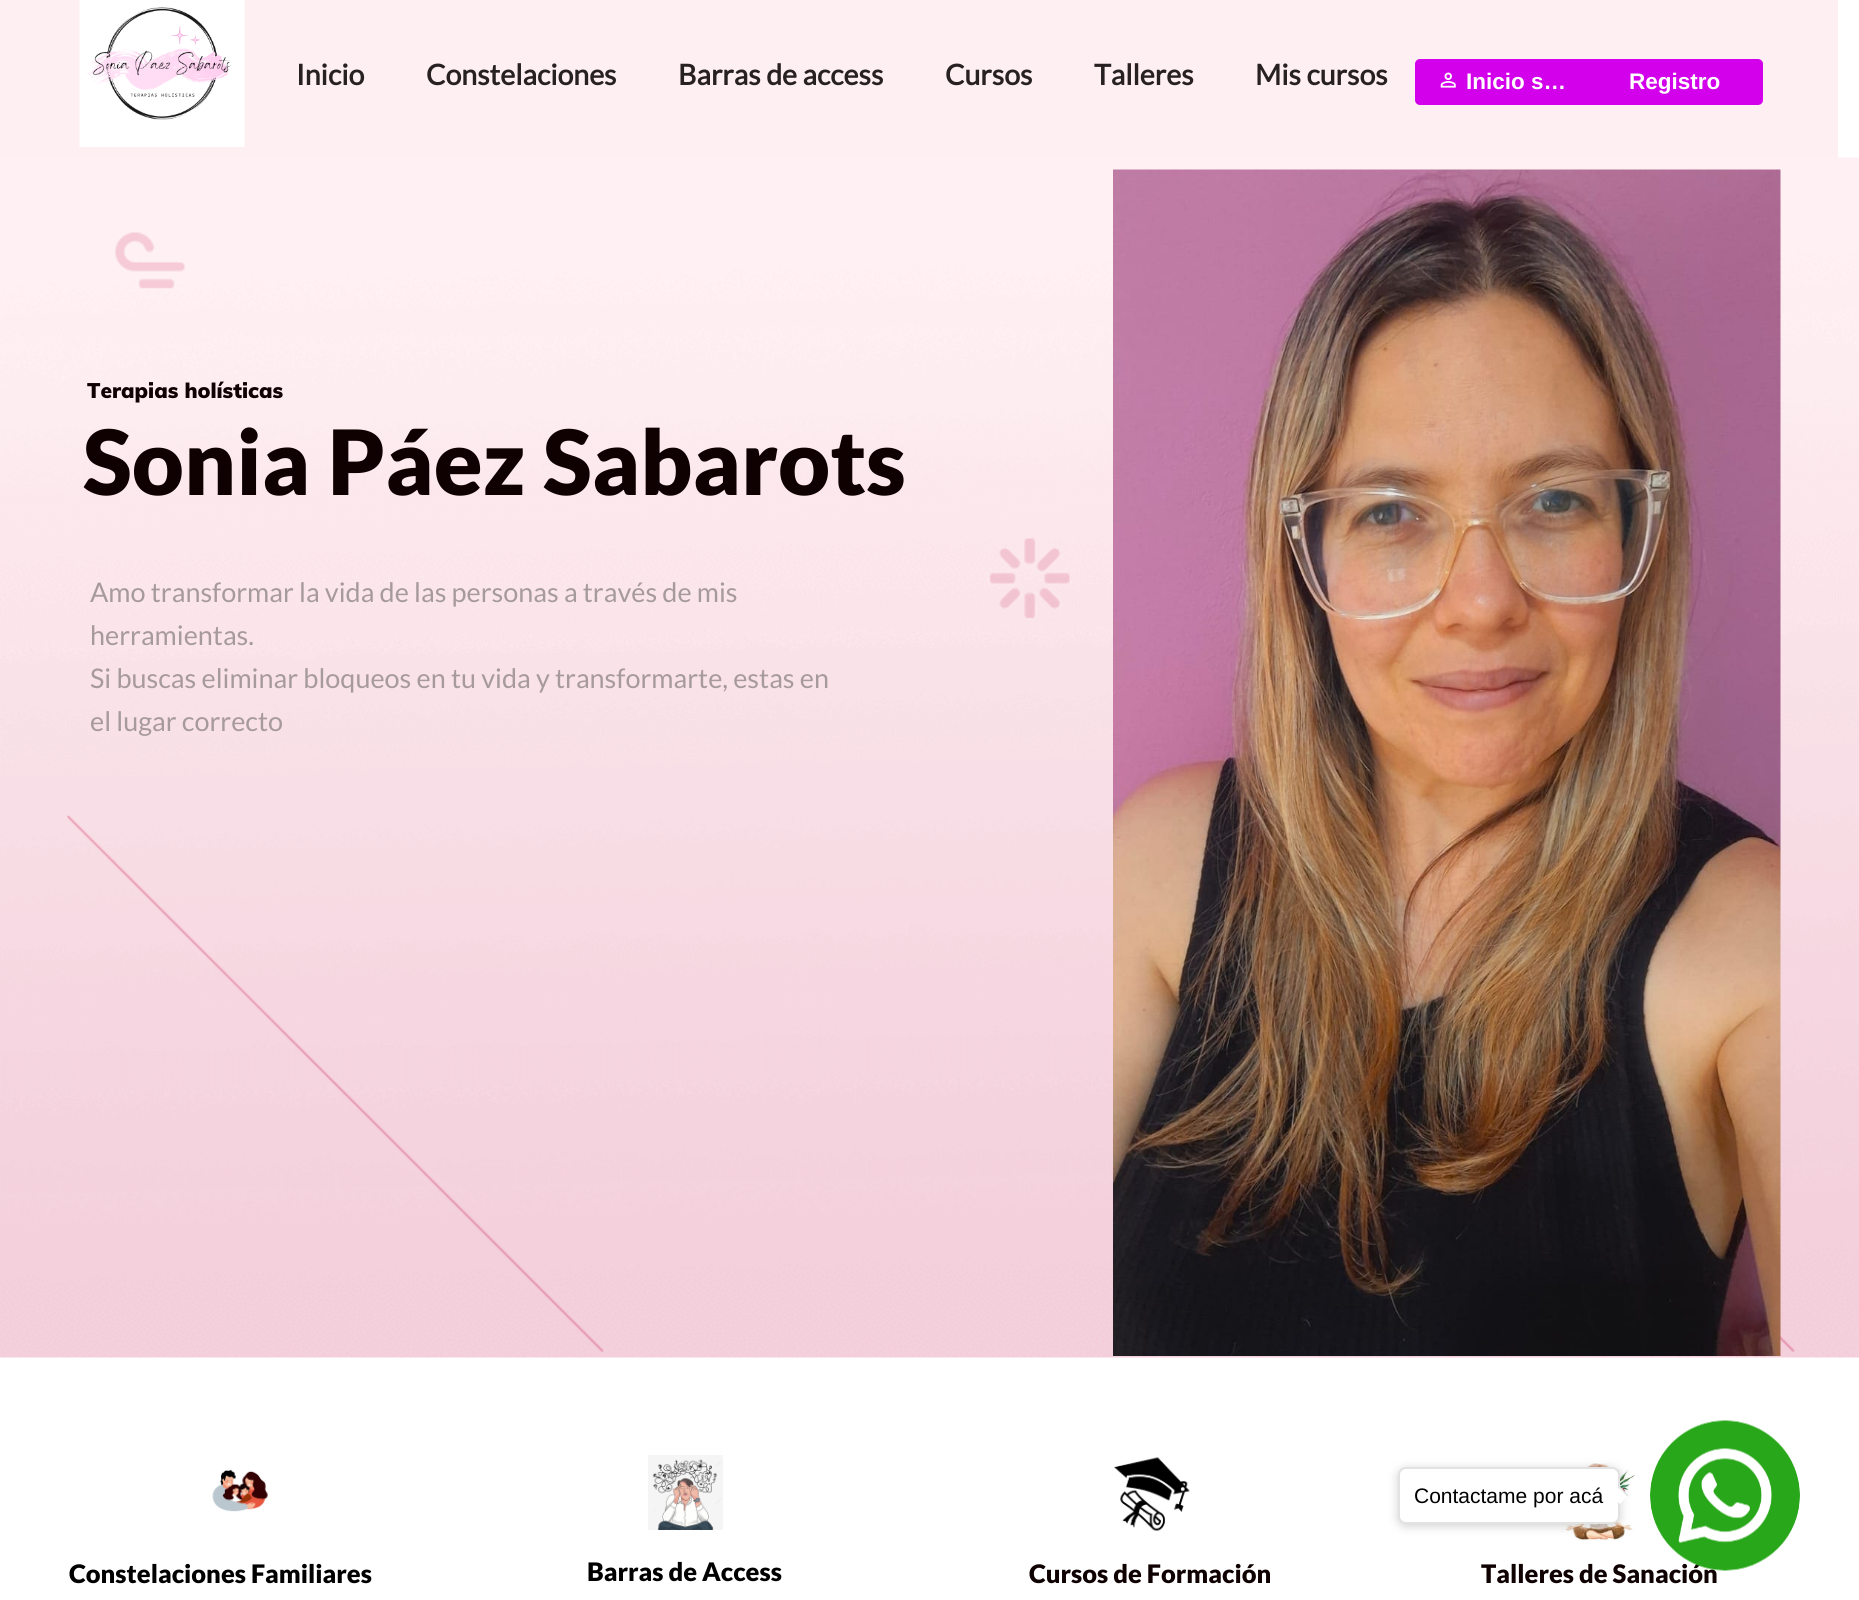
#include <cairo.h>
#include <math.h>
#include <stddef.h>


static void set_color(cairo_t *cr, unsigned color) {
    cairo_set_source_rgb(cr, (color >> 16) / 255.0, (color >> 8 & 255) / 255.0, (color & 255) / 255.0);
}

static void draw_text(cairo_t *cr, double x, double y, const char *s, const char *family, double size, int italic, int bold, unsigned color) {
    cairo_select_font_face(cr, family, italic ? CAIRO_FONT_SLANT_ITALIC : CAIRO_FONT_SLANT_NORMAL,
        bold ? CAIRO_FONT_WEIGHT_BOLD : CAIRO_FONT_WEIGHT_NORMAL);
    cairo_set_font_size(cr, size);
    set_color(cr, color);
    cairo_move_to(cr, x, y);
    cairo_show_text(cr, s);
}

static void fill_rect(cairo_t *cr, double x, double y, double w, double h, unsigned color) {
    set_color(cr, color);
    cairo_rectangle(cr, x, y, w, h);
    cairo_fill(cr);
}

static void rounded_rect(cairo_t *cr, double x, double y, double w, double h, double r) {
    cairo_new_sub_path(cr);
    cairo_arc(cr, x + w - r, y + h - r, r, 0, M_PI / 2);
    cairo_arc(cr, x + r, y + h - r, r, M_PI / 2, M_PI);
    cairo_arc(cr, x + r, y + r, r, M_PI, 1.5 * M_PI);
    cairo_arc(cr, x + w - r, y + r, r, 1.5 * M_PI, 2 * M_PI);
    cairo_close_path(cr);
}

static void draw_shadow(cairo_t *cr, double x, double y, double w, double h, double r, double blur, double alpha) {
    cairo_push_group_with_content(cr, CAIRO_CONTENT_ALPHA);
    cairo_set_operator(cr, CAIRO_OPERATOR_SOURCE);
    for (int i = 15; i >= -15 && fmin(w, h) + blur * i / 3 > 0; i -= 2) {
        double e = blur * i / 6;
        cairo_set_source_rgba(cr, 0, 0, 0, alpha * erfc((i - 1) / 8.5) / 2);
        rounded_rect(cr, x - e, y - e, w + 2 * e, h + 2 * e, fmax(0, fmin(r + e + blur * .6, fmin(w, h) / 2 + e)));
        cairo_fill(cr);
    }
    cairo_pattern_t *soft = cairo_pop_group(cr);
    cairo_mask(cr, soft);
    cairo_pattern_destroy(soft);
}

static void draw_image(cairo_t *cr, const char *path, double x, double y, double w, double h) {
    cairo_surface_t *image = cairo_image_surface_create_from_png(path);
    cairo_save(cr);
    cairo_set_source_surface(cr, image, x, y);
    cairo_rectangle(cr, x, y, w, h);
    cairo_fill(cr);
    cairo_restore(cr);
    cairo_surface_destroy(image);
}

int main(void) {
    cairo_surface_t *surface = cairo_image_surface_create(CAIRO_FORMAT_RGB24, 1859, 1600);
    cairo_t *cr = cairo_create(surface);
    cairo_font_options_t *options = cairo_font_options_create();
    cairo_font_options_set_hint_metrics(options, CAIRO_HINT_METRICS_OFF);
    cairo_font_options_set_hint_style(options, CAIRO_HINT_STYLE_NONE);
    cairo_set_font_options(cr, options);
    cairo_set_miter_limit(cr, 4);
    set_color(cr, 0xFFFFFF);
    cairo_paint(cr);
    draw_image(cr, "assets/img4.png", 0, 157, 1859, 1201);
    fill_rect(cr, 0, 0, 1838, 158, 0xFEEFF2);
    draw_image(cr, "assets/img1.png", 79, 0, 166, 147);
    draw_text(cr, 296, 85, "Inicio", "Lato", 28.5, 0, 1, 0x282123);
    draw_text(cr, 426, 85, "Constelaciones", "Lato", 28.5, 0, 1, 0x282123);
    draw_text(cr, 678, 85, "Barras de access", "Lato", 28.5, 0, 1, 0x282123);
    draw_text(cr, 945, 85, "Cursos", "Lato", 28.5, 0, 1, 0x282123);
    draw_text(cr, 1094, 85, "Talleres", "Lato", 28.5, 0, 1, 0x282123);
    draw_text(cr, 1255, 85, "Mis cursos", "Lato", 28.5, 0, 1, 0x282123);
    set_color(cr, 0xD300EC);
    rounded_rect(cr, 1415, 59, 348, 46, 5);
    cairo_fill(cr);
    draw_image(cr, "assets/img2.png", 1440, 72, 16, 16);
    draw_text(cr, 1466, 89, "Inicio s…", "Liberation Sans", 22.5, 0, 1, 0xFFFFFF);
    draw_text(cr, 1629, 89, "Registro", "Liberation Sans", 22.5, 0, 1, 0xFFFFFF);
    draw_image(cr, "assets/img9.png", 1563, 1463, 72, 78);
    set_color(cr, 0x888888);
    draw_shadow(cr, 1398, 1469, 222, 57, 8, 5, 0.4);
    set_color(cr, 0xFFFFFF);
    rounded_rect(cr, 1399, 1468, 220, 55, 7);
    cairo_fill_preserve(cr);
    set_color(cr, 0xE2E2E2);
    cairo_stroke(cr);
    draw_text(cr, 1414, 1503, "Contactame por acá", "Liberation Sans", 21, 0, 0, 0x000000);
    set_color(cr, 0xFFFFFF);
    cairo_new_path(cr);
    cairo_move_to(cr, 1611.5, 1495.5);
    cairo_line_to(cr, 1620, 1487);
    cairo_line_to(cr, 1628.5, 1495.5);
    cairo_line_to(cr, 1620, 1504);
    cairo_close_path(cr);
    cairo_fill(cr);
    set_color(cr, 0xE2E2E2);
    cairo_new_path(cr);
    cairo_move_to(cr, 1619, 1488);
    cairo_line_to(cr, 1620, 1487);
    cairo_line_to(cr, 1628.5, 1495.5);
    cairo_line_to(cr, 1627.5, 1496.5);
    cairo_close_path(cr);
    cairo_fill(cr);
    draw_text(cr, 1481, 1583, "Talleres de Sanación", "Lato Black", 25.5, 0, 0, 0x0F0101);
    draw_image(cr, "assets/img3.png", 1650, 1420, 150, 151);
    draw_text(cr, 87, 398, "Terapias holísticas", "Muli Black", 21, 0, 0, 0x0F0101);
    draw_text(cr, 83, 495, "Sonia Páez Sabarots", "Lato Black", 90, 0, 0, 0x0F0101);
    draw_text(cr, 90, 602, "Amo transformar la vida de las personas a través de mis", "Lato", 27, 0, 0, 0xA79A9D);
    draw_text(cr, 90, 645, "herramientas.", "Lato", 27, 0, 0, 0xA79A9D);
    draw_text(cr, 90, 688, "Si buscas eliminar bloqueos en tu vida y transformarte, estas en", "Lato", 27, 0, 0, 0xA79A9D);
    draw_text(cr, 90, 731, "el lugar correcto", "Lato", 27, 0, 0, 0xA79A9D);
    draw_image(cr, "assets/img5.png", 1113, 169, 668, 1187);
    draw_image(cr, "assets/img6.png", 212, 1469, 56, 43);
    draw_text(cr, 69, 1583, "Constelaciones Familiares", "Lato Black", 25.5, 0, 0, 0x000000);
    draw_image(cr, "assets/img7.png", 648, 1455, 75, 75);
    draw_text(cr, 587, 1581, "Barras de Access", "Lato Black", 25.5, 0, 0, 0x000000);
    draw_image(cr, "assets/img8.png", 1114, 1457, 76, 74);
    draw_text(cr, 1029, 1583, "Cursos de Formación", "Lato Black", 25.5, 0, 0, 0x0F0101);
    cairo_surface_write_to_png(surface, "output.png");
    cairo_font_options_destroy(options);
    cairo_destroy(cr);
    cairo_surface_destroy(surface);
    return 0;
}
